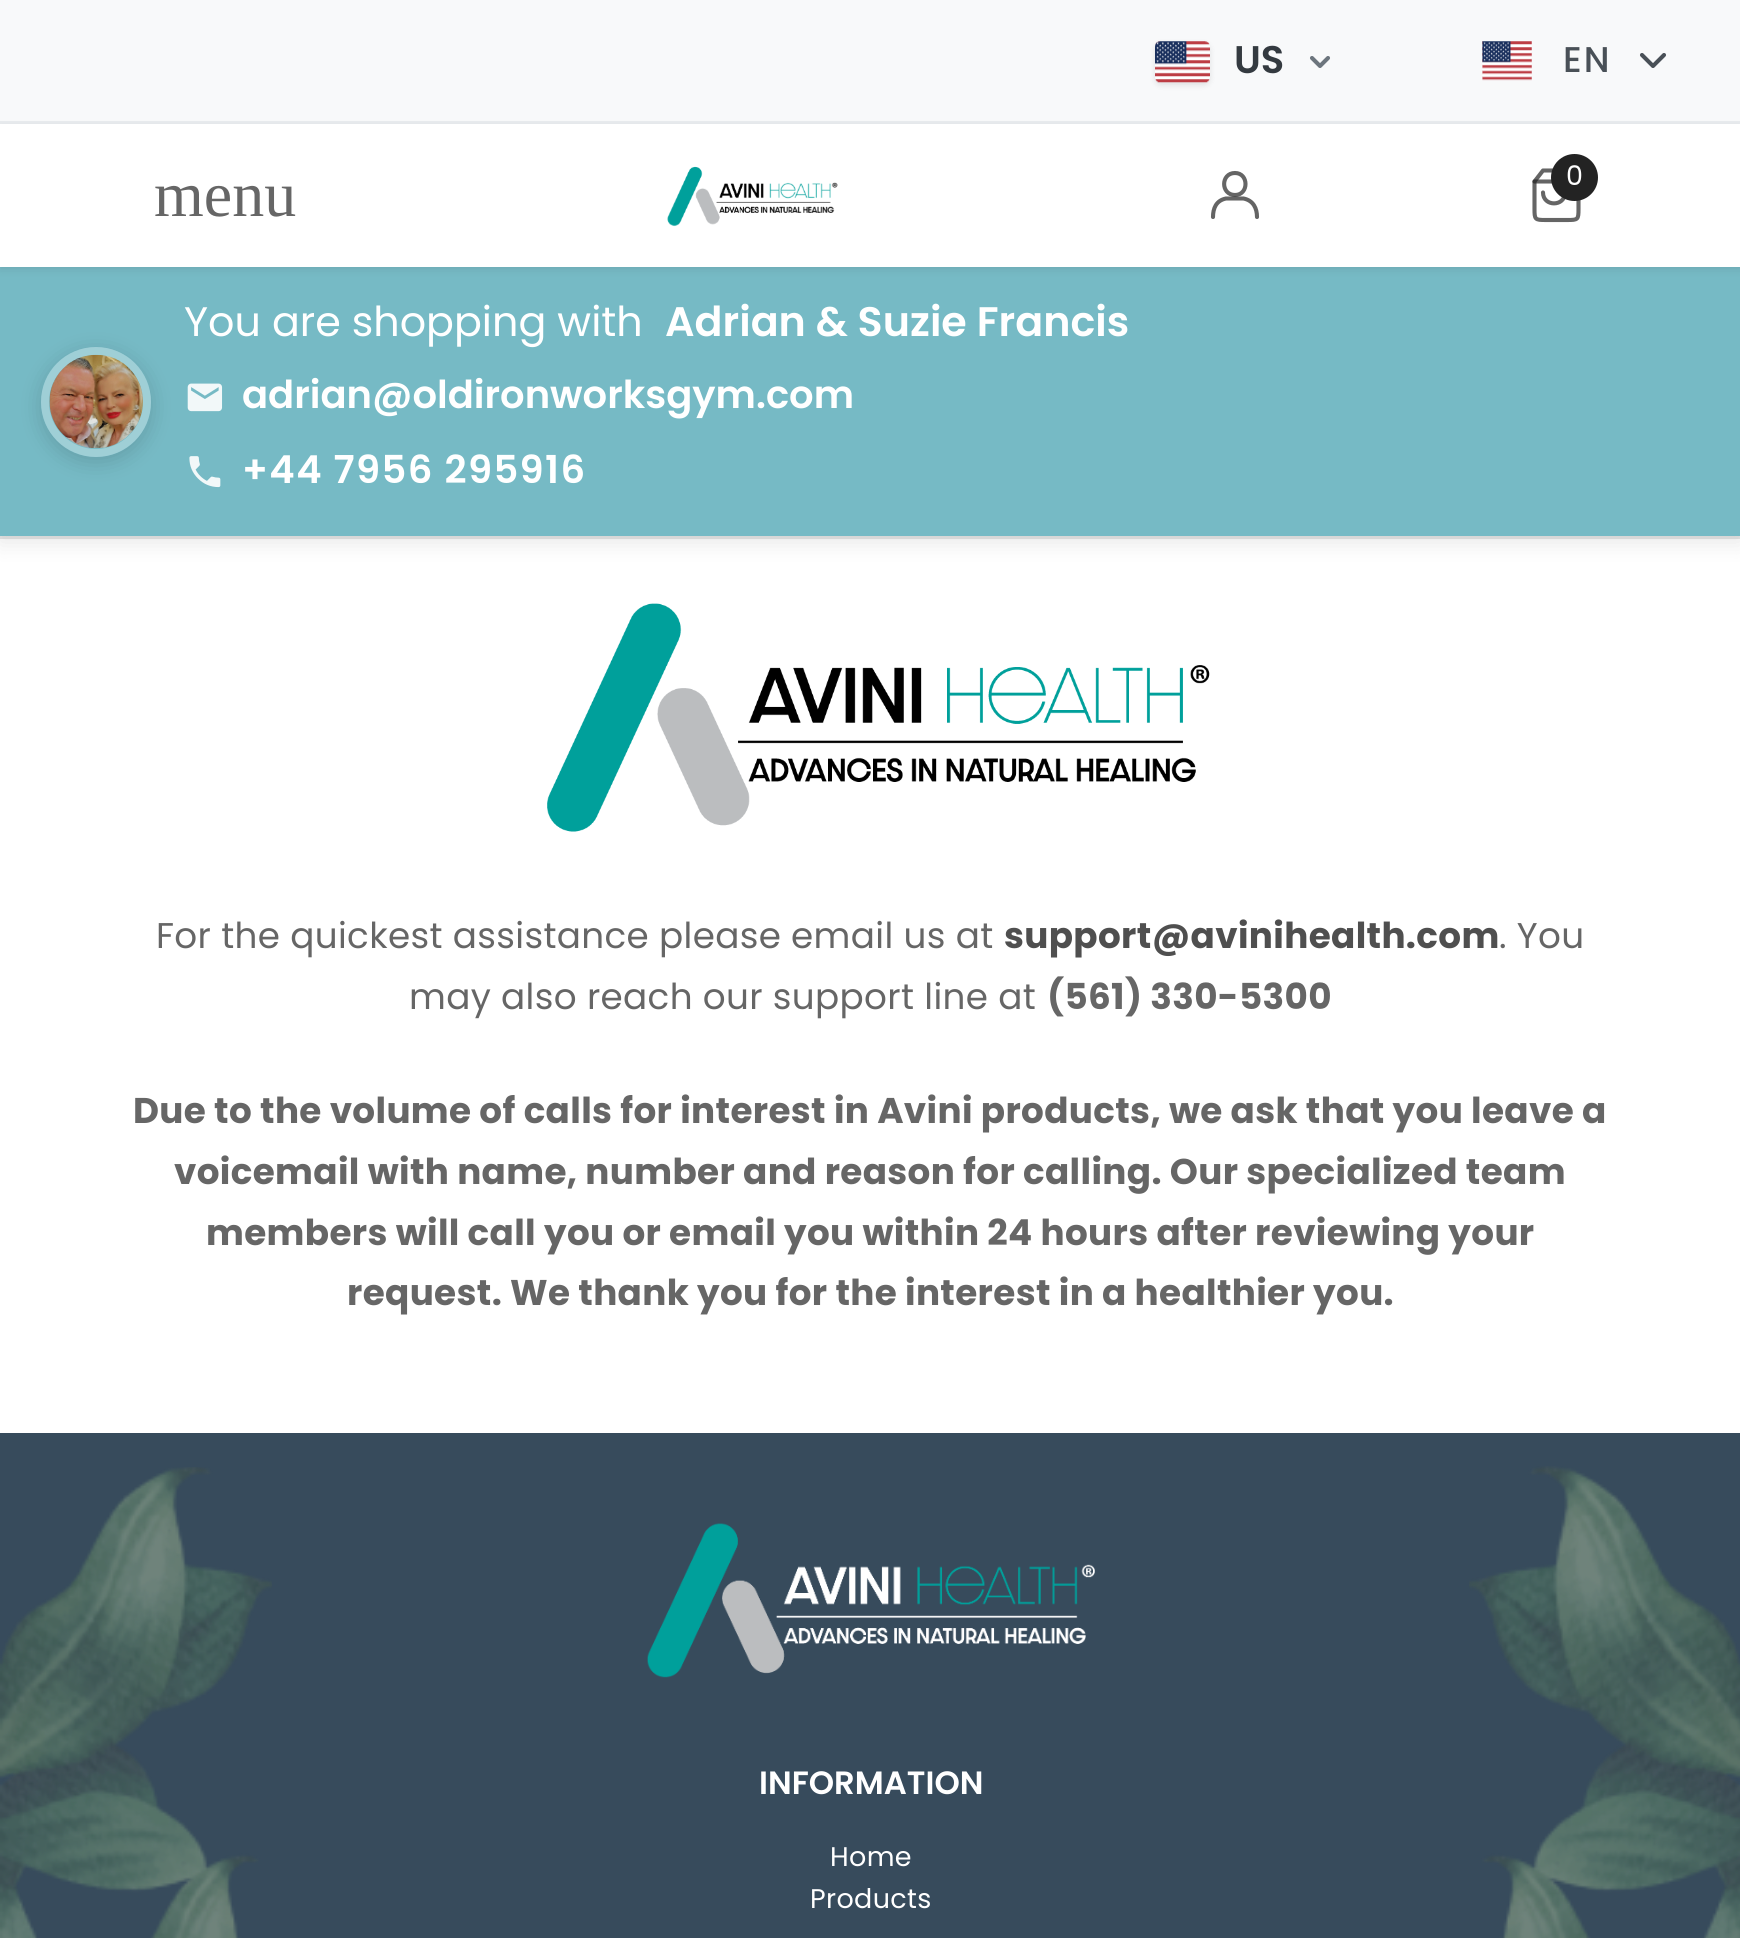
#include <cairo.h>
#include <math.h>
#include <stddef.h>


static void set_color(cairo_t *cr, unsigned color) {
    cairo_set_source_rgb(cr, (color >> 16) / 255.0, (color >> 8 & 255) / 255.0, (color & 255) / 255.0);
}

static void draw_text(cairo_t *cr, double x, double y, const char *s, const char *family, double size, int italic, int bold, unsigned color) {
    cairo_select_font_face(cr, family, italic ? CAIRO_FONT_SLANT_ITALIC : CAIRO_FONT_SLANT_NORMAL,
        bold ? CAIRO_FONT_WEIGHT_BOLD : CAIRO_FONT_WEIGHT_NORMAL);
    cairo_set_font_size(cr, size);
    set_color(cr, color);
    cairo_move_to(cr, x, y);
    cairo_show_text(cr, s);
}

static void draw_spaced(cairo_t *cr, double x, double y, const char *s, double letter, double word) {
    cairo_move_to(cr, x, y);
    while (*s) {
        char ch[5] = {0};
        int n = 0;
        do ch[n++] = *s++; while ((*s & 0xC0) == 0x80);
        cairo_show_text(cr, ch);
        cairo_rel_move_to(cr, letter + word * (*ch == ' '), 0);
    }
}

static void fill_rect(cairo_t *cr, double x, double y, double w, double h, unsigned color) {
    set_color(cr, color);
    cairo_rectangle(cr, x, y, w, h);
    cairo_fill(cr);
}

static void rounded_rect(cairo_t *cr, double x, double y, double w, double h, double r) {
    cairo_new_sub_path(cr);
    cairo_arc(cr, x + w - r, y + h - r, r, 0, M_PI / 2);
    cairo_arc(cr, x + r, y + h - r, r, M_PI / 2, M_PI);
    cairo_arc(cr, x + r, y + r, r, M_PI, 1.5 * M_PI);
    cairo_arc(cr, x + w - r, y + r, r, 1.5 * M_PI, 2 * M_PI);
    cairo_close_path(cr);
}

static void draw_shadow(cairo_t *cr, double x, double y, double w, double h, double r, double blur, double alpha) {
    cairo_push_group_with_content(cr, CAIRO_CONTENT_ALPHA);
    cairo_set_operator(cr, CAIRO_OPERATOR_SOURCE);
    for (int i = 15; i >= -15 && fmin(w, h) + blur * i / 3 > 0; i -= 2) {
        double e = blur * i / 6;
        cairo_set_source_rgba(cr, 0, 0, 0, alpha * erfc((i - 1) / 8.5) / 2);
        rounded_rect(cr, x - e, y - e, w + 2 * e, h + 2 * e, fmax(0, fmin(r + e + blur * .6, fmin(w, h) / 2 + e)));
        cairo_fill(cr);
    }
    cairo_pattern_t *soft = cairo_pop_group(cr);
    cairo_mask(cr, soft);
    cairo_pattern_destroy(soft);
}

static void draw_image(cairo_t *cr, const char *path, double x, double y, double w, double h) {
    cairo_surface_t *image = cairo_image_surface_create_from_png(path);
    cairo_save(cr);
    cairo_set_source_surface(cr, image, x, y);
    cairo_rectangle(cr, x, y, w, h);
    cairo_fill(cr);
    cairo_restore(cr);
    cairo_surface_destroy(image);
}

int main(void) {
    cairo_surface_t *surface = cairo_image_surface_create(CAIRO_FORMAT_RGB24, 1740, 1938);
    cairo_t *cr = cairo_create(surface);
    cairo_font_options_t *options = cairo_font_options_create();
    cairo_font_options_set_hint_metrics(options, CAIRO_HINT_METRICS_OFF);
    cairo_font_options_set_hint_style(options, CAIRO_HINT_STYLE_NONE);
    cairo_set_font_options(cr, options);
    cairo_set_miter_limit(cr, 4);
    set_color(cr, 0xFFFFFF);
    cairo_paint(cr);
    fill_rect(cr, 0, 536, 1740, 3, 0xE6E6E6);
    fill_rect(cr, 0, 0, 1740, 121, 0xF8F9FA);
    fill_rect(cr, 0, 121, 1740, 3, 0xE9ECEF);
    set_color(cr, 0x000000);
    draw_shadow(cr, 1155, 44, 55, 41, 6, 3, 0.1);
    draw_image(cr, "assets/img1.png", 1155, 41, 55, 42);
    draw_text(cr, 1234, 73, "US", "Poppins SemiBold", 38.5, 0, 0, 0x343A40);
    cairo_new_path(cr);
    cairo_move_to(cr, 1312, 58);
    cairo_line_to(cr, 1320, 66);
    cairo_line_to(cr, 1328, 58);
    set_color(cr, 0x6C757D);
    cairo_set_line_width(cr, 4.1);
    cairo_set_line_cap(cr, CAIRO_LINE_CAP_ROUND);
    cairo_set_line_join(cr, CAIRO_LINE_JOIN_ROUND);
    cairo_stroke(cr);
    draw_image(cr, "assets/img2.png", 1482, 41, 50, 40);
    cairo_select_font_face(cr, "Poppins Medium", CAIRO_FONT_SLANT_NORMAL, CAIRO_FONT_WEIGHT_NORMAL);
    cairo_set_font_size(cr, 35.75);
    set_color(cr, 0x495057);
    draw_spaced(cr, 1563, 72, "EN", 2, 0);
    cairo_new_path(cr);
    cairo_move_to(cr, 1642, 55);
    cairo_line_to(cr, 1653, 66);
    cairo_line_to(cr, 1664, 55);
    cairo_stroke(cr);
    set_color(cr, 0x000000);
    draw_shadow(cr, 0, 272, 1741, 270, 0, 11, 0.1);
    fill_rect(cr, 0, 267, 1740, 269, 0x76BAC5);
    set_color(cr, 0x232323);
    draw_shadow(cr, 0, 127, 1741, 143, 0, 4, 0.1);
    fill_rect(cr, 0, 124, 1740, 143, 0xFFFFFF);
    draw_text(cr, 154, 216, "menu", "Liberation Serif", 64, 0, 0, 0x666666);
    draw_image(cr, "assets/img3.png", 667, 166, 171, 61);
    cairo_new_path(cr);
    cairo_move_to(cr, 1235, 195);
    cairo_curve_to(cr, 1249, 195, 1249, 173, 1235, 173);
    cairo_curve_to(cr, 1220.5, 173, 1220.5, 195, 1235, 195);
    cairo_close_path(cr);
    set_color(cr, 0x656565);
    cairo_stroke(cr);
    cairo_new_path(cr);
    cairo_move_to(cr, 1213, 217);
    cairo_curve_to(cr, 1213, 208.5, 1216, 200.5, 1226, 198.5);
    cairo_line_to(cr, 1243.5, 198.5);
    cairo_curve_to(cr, 1253.5, 200.5, 1257, 208.5, 1257, 217);
    cairo_set_source_rgba(cr, 0.137, 0.137, 0.137, 0.7);
    cairo_stroke(cr);
    cairo_new_path(cr);
    cairo_move_to(cr, 1543, 170.5);
    cairo_line_to(cr, 1534.5, 181.5);
    cairo_line_to(cr, 1534.5, 209);
    cairo_curve_to(cr, 1534.5, 219.5, 1535, 220, 1545.5, 220);
    cairo_line_to(cr, 1567.5, 220);
    cairo_curve_to(cr, 1578, 220, 1578.5, 219.5, 1578.5, 209);
    cairo_line_to(cr, 1578.5, 181.5);
    cairo_line_to(cr, 1570, 170.5);
    cairo_close_path(cr);
    set_color(cr, 0x656565);
    cairo_stroke(cr);
    cairo_new_path(cr);
    cairo_move_to(cr, 1534.5, 181.5);
    cairo_line_to(cr, 1578.5, 181.5);
    cairo_set_source_rgba(cr, 0.137, 0.137, 0.137, 0.7);
    cairo_stroke(cr);
    cairo_new_path(cr);
    cairo_move_to(cr, 1565, 192.5);
    cairo_curve_to(cr, 1565, 207, 1543, 207, 1543, 192.5);
    set_color(cr, 0x656565);
    cairo_stroke(cr);
    set_color(cr, 0x232323);
    cairo_arc(cr, 1574.5, 177.5, 23.5, 0, 2 * M_PI);
    cairo_fill(cr);
    draw_text(cr, 1566, 185, "0", "Poppins", 27, 0, 0, 0xFFFFFF);
    cairo_save(cr);
    cairo_set_fill_rule(cr, CAIRO_FILL_RULE_EVEN_ODD);
    cairo_new_path(cr);
    cairo_move_to(cr, 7, 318);
    cairo_line_to(cr, 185, 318);
    cairo_line_to(cr, 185, 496);
    cairo_line_to(cr, 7, 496);
    cairo_close_path(cr);
    cairo_move_to(cr, 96, 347);
    cairo_curve_to(cr, 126.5, 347, 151, 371.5, 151, 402);
    cairo_curve_to(cr, 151, 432.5, 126.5, 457, 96, 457);
    cairo_curve_to(cr, 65.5, 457, 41, 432.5, 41, 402);
    cairo_curve_to(cr, 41, 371.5, 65.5, 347, 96, 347);
    cairo_close_path(cr);
    cairo_clip(cr);
    set_color(cr, 0x000000);
    draw_shadow(cr, 41, 352, 110, 110, 55, 11, 0.15);
    cairo_restore(cr);
    cairo_arc(cr, 96, 402, 51, 0, 2 * M_PI);
    cairo_set_source_rgba(cr, 1, 1, 1, 0.3);
    cairo_set_line_width(cr, 8);
    cairo_set_line_cap(cr, CAIRO_LINE_CAP_BUTT);
    cairo_set_line_join(cr, CAIRO_LINE_JOIN_MITER);
    cairo_stroke(cr);
    draw_image(cr, "assets/img4.png", 49, 354, 94, 94);
    draw_text(cr, 184, 336, "You are shopping with", "Poppins", 41.25, 0, 0, 0xFFFFFF);
    draw_text(cr, 665, 336, "Adrian & Suzie Francis", "Poppins SemiBold", 41.25, 0, 0, 0xFFFFFF);
    draw_image(cr, "assets/img5.png", 187, 383, 36, 29);
    draw_text(cr, 242, 408, "adrian@oldironworksgym.com", "Poppins SemiBold", 38.5, 0, 0, 0xFFFFFF);
    draw_image(cr, "assets/img6.png", 189, 456, 32, 32);
    draw_spaced(cr, 242, 483, "+44 7956 295916", 1.4, 0);
    draw_image(cr, "assets/img7.png", 547, 603, 663, 229);
    cairo_select_font_face(cr, "Poppins", CAIRO_FONT_SLANT_NORMAL, CAIRO_FONT_WEIGHT_NORMAL);
    cairo_set_font_size(cr, 35.75);
    set_color(cr, 0x666666);
    draw_spaced(cr, 156, 948, "For the quickest assistance please email us at", 0.35, 0);
    cairo_select_font_face(cr, "Poppins", CAIRO_FONT_SLANT_NORMAL, CAIRO_FONT_WEIGHT_BOLD);
    set_color(cr, 0x4F4F4F);
    draw_spaced(cr, 1004, 948, "support@avinihealth.com", 0.35, 0);
    cairo_select_font_face(cr, "Poppins", CAIRO_FONT_SLANT_NORMAL, CAIRO_FONT_WEIGHT_NORMAL);
    set_color(cr, 0x666666);
    draw_spaced(cr, 1499, 948, ". You", 0.35, 0);
    draw_spaced(cr, 409, 1009, "may also reach our support line at", 0.35, 0);
    cairo_select_font_face(cr, "Poppins", CAIRO_FONT_SLANT_NORMAL, CAIRO_FONT_WEIGHT_BOLD);
    draw_spaced(cr, 1047, 1009, "(561) 330-5300", 0.35, 0);
    draw_spaced(cr, 133, 1123, "Due to the volume of calls for interest in Avini products, we ask that you leave a", 0.35, 0);
    draw_spaced(cr, 174, 1184, "voicemail with name, number and reason for calling. Our specialized team", 0.35, 0);
    draw_spaced(cr, 206, 1245, "members will call you or email you within 24 hours after reviewing your", 0.35, 0);
    draw_spaced(cr, 347, 1305, "request. We thank you for the interest in a healthier you.", 0.35, 0);
    fill_rect(cr, 0, 1433, 1740, 505, 0x374B5C);
    draw_image(cr, "assets/img8.png", 0, 1467, 272, 471);
    draw_image(cr, "assets/img9.png", 1469, 1466, 271, 472);
    draw_image(cr, "assets/img10.png", 647, 1523, 448, 155);
    draw_text(cr, 759, 1794, "INFORMATION", "Poppins SemiBold", 32.25, 0, 0, 0xFFFFFF);
    cairo_select_font_face(cr, "Poppins", CAIRO_FONT_SLANT_NORMAL, CAIRO_FONT_WEIGHT_NORMAL);
    cairo_set_font_size(cr, 27);
    draw_spaced(cr, 830, 1866, "Home", 0.35, 0);
    draw_spaced(cr, 810, 1908, "Products", 0.35, 0);
    cairo_surface_write_to_png(surface, "output.png");
    cairo_font_options_destroy(options);
    cairo_destroy(cr);
    cairo_surface_destroy(surface);
    return 0;
}
